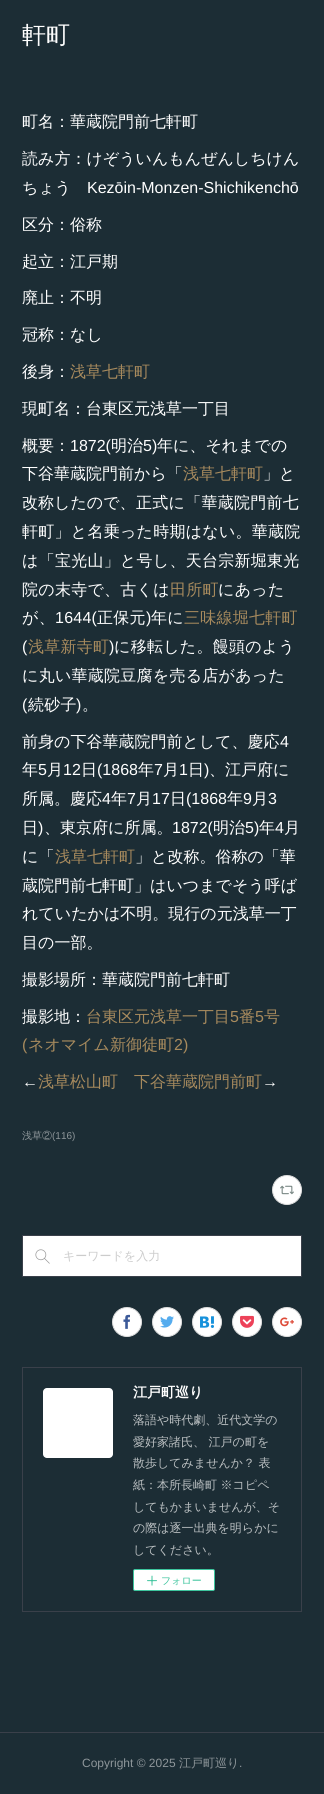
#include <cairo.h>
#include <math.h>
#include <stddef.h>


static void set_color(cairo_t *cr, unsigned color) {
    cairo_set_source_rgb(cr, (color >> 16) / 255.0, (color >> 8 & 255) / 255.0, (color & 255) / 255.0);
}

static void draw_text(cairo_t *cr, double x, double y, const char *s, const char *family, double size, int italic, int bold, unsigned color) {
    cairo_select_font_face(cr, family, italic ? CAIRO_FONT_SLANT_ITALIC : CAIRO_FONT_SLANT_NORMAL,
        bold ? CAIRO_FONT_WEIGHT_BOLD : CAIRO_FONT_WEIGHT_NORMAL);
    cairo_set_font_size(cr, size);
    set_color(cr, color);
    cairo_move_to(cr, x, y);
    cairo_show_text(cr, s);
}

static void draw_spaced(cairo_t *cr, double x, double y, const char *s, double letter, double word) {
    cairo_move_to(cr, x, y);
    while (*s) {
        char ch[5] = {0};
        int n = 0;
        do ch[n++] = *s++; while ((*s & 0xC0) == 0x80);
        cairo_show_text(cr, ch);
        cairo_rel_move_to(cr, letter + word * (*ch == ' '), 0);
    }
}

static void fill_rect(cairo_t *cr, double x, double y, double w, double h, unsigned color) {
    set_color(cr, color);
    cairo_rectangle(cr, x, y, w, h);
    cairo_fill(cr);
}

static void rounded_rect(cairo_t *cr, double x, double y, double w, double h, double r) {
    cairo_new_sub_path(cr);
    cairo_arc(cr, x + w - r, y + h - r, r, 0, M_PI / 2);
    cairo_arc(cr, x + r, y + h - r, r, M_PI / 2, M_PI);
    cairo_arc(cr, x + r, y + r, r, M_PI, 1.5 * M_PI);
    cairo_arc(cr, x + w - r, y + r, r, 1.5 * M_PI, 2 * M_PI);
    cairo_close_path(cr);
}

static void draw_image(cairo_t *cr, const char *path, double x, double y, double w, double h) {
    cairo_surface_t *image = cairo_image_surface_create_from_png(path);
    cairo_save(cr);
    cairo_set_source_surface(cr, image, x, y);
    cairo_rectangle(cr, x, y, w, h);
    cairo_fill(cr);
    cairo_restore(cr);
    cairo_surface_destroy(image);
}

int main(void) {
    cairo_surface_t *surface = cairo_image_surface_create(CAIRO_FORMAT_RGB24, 324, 1794);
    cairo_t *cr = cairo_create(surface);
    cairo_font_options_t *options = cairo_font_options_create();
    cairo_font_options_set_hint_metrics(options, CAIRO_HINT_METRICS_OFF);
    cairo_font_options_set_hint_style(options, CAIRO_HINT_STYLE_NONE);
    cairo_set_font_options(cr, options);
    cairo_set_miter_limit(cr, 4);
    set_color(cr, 0x1C2D35);
    cairo_paint(cr);
    draw_text(cr, 22, 43, "軒町", "WenQuanYi Zen Hei Medium", 24, 0, 0, 0xFFFFFF);
    draw_text(cr, 22, 127, "町名：華蔵院門前七軒町", "WenQuanYi Zen Hei Medium", 16, 0, 0, 0xFFFFFF);
    draw_text(cr, 22, 164, "読み方：けぞういんもんぜんしちけん", "WenQuanYi Zen Hei Medium", 16, 0, 0, 0xFFFFFF);
    draw_text(cr, 22, 193, "ちょう", "WenQuanYi Zen Hei Medium", 16, 0, 0, 0xFFFFFF);
    draw_text(cr, 87, 193, "Kezōin-Monzen-Shichikenchō", "Liberation Sans", 16, 0, 0, 0xFFFFFF);
    draw_text(cr, 22, 230, "区分：俗称", "WenQuanYi Zen Hei Medium", 16, 0, 0, 0xFFFFFF);
    draw_text(cr, 22, 267, "起立：江戸期", "WenQuanYi Zen Hei Medium", 16, 0, 0, 0xFFFFFF);
    draw_text(cr, 22, 303, "廃止：不明", "WenQuanYi Zen Hei Medium", 16, 0, 0, 0xFFFFFF);
    draw_text(cr, 22, 340, "冠称：なし", "WenQuanYi Zen Hei Medium", 16, 0, 0, 0xFFFFFF);
    draw_text(cr, 22, 377, "後身：", "WenQuanYi Zen Hei Medium", 16, 0, 0, 0xFFFFFF);
    draw_text(cr, 70, 377, "浅草七軒町", "WenQuanYi Zen Hei Medium", 16, 0, 0, 0xA78A5D);
    draw_text(cr, 22, 414, "現町名：台東区元浅草一丁目", "WenQuanYi Zen Hei Medium", 16, 0, 0, 0xFFFFFF);
    draw_text(cr, 22, 451, "概要：", "WenQuanYi Zen Hei Medium", 16, 0, 0, 0xFFFFFF);
    draw_text(cr, 70, 451, "1872(", "Liberation Sans", 16, 0, 0, 0xFFFFFF);
    draw_text(cr, 111, 451, "明治", "WenQuanYi Zen Hei Medium", 16, 0, 0, 0xFFFFFF);
    draw_text(cr, 143, 451, "5)", "Liberation Sans", 16, 0, 0, 0xFFFFFF);
    draw_text(cr, 157, 451, "年に、それまでの", "WenQuanYi Zen Hei Medium", 16, 0, 0, 0xFFFFFF);
    draw_text(cr, 22, 479, "下谷華蔵院門前から「", "WenQuanYi Zen Hei Medium", 16, 0, 0, 0xFFFFFF);
    draw_text(cr, 183, 479, "浅草七軒町", "WenQuanYi Zen Hei Medium", 16, 0, 0, 0xA78A5D);
    draw_text(cr, 263, 479, "」と", "WenQuanYi Zen Hei Medium", 16, 0, 0, 0xFFFFFF);
    draw_text(cr, 22, 508, "改称したので、", "WenQuanYi Zen Hei Medium", 16, 0, 0, 0xFFFFFF);
    draw_spaced(cr, 136, 508, "正式に「華蔵院門前七", 0.25, 0);
    draw_spaced(cr, 22, 537, "軒町」と名乗った時期はない。華蔵院", 0.25, 0);
    draw_spaced(cr, 22, 566, "は「宝光山」と号し、天台宗新堀東光", 0.25, 0);
    draw_spaced(cr, 22, 595, "院の末寺で、古くは", 0.25, 0);
    set_color(cr, 0xA78A5D);
    draw_spaced(cr, 170, 595, "田所町", 0.25, 0);
    set_color(cr, 0xFFFFFF);
    draw_spaced(cr, 218, 595, "にあった", 0.25, 0);
    draw_spaced(cr, 22, 623, "が、", 0.25, 0);
    cairo_select_font_face(cr, "Liberation Sans", CAIRO_FONT_SLANT_NORMAL, CAIRO_FONT_WEIGHT_NORMAL);
    draw_spaced(cr, 55, 623, "1644(", 0.25, 0);
    cairo_select_font_face(cr, "WenQuanYi Zen Hei Medium", CAIRO_FONT_SLANT_NORMAL, CAIRO_FONT_WEIGHT_NORMAL);
    draw_spaced(cr, 97, 623, "正保元", 0.25, 0);
    cairo_select_font_face(cr, "Liberation Sans", CAIRO_FONT_SLANT_NORMAL, CAIRO_FONT_WEIGHT_NORMAL);
    draw_spaced(cr, 146, 623, ")", 0.25, 0);
    cairo_select_font_face(cr, "WenQuanYi Zen Hei Medium", CAIRO_FONT_SLANT_NORMAL, CAIRO_FONT_WEIGHT_NORMAL);
    draw_spaced(cr, 151, 623, "年に", 0.25, 0);
    set_color(cr, 0xA78A5D);
    draw_spaced(cr, 184, 623, "三味線堀七軒町", 0.25, 0);
    cairo_select_font_face(cr, "Liberation Sans", CAIRO_FONT_SLANT_NORMAL, CAIRO_FONT_WEIGHT_NORMAL);
    set_color(cr, 0xFFFFFF);
    draw_spaced(cr, 22, 652, "(", 0.25, 0);
    cairo_select_font_face(cr, "WenQuanYi Zen Hei Medium", CAIRO_FONT_SLANT_NORMAL, CAIRO_FONT_WEIGHT_NORMAL);
    set_color(cr, 0xA78A5D);
    draw_spaced(cr, 28, 652, "浅草新寺町", 0.25, 0);
    cairo_select_font_face(cr, "Liberation Sans", CAIRO_FONT_SLANT_NORMAL, CAIRO_FONT_WEIGHT_NORMAL);
    set_color(cr, 0xFFFFFF);
    draw_spaced(cr, 109, 652, ")", 0.25, 0);
    cairo_select_font_face(cr, "WenQuanYi Zen Hei Medium", CAIRO_FONT_SLANT_NORMAL, CAIRO_FONT_WEIGHT_NORMAL);
    draw_spaced(cr, 114, 652, "に移転した。饅頭のよう", 0.25, 0);
    draw_spaced(cr, 22, 681, "に丸い華蔵院豆腐を売る店があった", 0.25, 0);
    cairo_select_font_face(cr, "Liberation Sans", CAIRO_FONT_SLANT_NORMAL, CAIRO_FONT_WEIGHT_NORMAL);
    draw_spaced(cr, 22, 710, "(", 0.25, 0);
    cairo_select_font_face(cr, "WenQuanYi Zen Hei Medium", CAIRO_FONT_SLANT_NORMAL, CAIRO_FONT_WEIGHT_NORMAL);
    draw_spaced(cr, 28, 710, "続砂子", 0.25, 0);
    cairo_select_font_face(cr, "Liberation Sans", CAIRO_FONT_SLANT_NORMAL, CAIRO_FONT_WEIGHT_NORMAL);
    draw_spaced(cr, 76, 710, ")", 0.25, 0);
    cairo_select_font_face(cr, "WenQuanYi Zen Hei Medium", CAIRO_FONT_SLANT_NORMAL, CAIRO_FONT_WEIGHT_NORMAL);
    draw_spaced(cr, 82, 710, "。", 0.25, 0);
    draw_text(cr, 22, 747, "前身の下谷華蔵院門前として、慶応", "WenQuanYi Zen Hei Medium", 16, 0, 0, 0xFFFFFF);
    draw_text(cr, 280, 747, "4", "Liberation Sans", 16, 0, 0, 0xFFFFFF);
    draw_text(cr, 22, 775, "年", "WenQuanYi Zen Hei Medium", 16, 0, 0, 0xFFFFFF);
    draw_text(cr, 38, 775, "5", "Liberation Sans", 16, 0, 0, 0xFFFFFF);
    draw_text(cr, 47, 775, "月", "WenQuanYi Zen Hei Medium", 16, 0, 0, 0xFFFFFF);
    draw_text(cr, 63, 775, "12", "Liberation Sans", 16, 0, 0, 0xFFFFFF);
    draw_text(cr, 81, 775, "日", "WenQuanYi Zen Hei Medium", 16, 0, 0, 0xFFFFFF);
    draw_text(cr, 97, 775, "(1868", "Liberation Sans", 16, 0, 0, 0xFFFFFF);
    draw_text(cr, 138, 775, "年", "WenQuanYi Zen Hei Medium", 16, 0, 0, 0xFFFFFF);
    draw_text(cr, 154, 775, "7", "Liberation Sans", 16, 0, 0, 0xFFFFFF);
    draw_text(cr, 163, 775, "月", "WenQuanYi Zen Hei Medium", 16, 0, 0, 0xFFFFFF);
    draw_text(cr, 179, 775, "1", "Liberation Sans", 16, 0, 0, 0xFFFFFF);
    draw_text(cr, 188, 775, "日", "WenQuanYi Zen Hei Medium", 16, 0, 0, 0xFFFFFF);
    draw_text(cr, 204, 775, ")", "Liberation Sans", 16, 0, 0, 0xFFFFFF);
    draw_text(cr, 209, 775, "、江戸府に", "WenQuanYi Zen Hei Medium", 16, 0, 0, 0xFFFFFF);
    draw_text(cr, 22, 804, "所属。慶応", "WenQuanYi Zen Hei Medium", 16, 0, 0, 0xFFFFFF);
    draw_text(cr, 102, 804, "4", "Liberation Sans", 16, 0, 0, 0xFFFFFF);
    draw_text(cr, 111, 804, "年", "WenQuanYi Zen Hei Medium", 16, 0, 0, 0xFFFFFF);
    draw_text(cr, 127, 804, "7", "Liberation Sans", 16, 0, 0, 0xFFFFFF);
    draw_text(cr, 136, 804, "月", "WenQuanYi Zen Hei Medium", 16, 0, 0, 0xFFFFFF);
    draw_text(cr, 152, 804, "17", "Liberation Sans", 16, 0, 0, 0xFFFFFF);
    draw_text(cr, 170, 804, "日", "WenQuanYi Zen Hei Medium", 16, 0, 0, 0xFFFFFF);
    draw_text(cr, 186, 804, "(1868", "Liberation Sans", 16, 0, 0, 0xFFFFFF);
    draw_text(cr, 227, 804, "年", "WenQuanYi Zen Hei Medium", 16, 0, 0, 0xFFFFFF);
    draw_text(cr, 243, 804, "9", "Liberation Sans", 16, 0, 0, 0xFFFFFF);
    draw_text(cr, 252, 804, "月", "WenQuanYi Zen Hei Medium", 16, 0, 0, 0xFFFFFF);
    draw_text(cr, 268, 804, "3", "Liberation Sans", 16, 0, 0, 0xFFFFFF);
    draw_text(cr, 22, 833, "日", "WenQuanYi Zen Hei Medium", 16, 0, 0, 0xFFFFFF);
    draw_text(cr, 38, 833, ")", "Liberation Sans", 16, 0, 0, 0xFFFFFF);
    draw_text(cr, 44, 833, "、東京府に所属。", "WenQuanYi Zen Hei Medium", 16, 0, 0, 0xFFFFFF);
    draw_text(cr, 172, 833, "1872(", "Liberation Sans", 16, 0, 0, 0xFFFFFF);
    draw_text(cr, 213, 833, "明治", "WenQuanYi Zen Hei Medium", 16, 0, 0, 0xFFFFFF);
    draw_text(cr, 245, 833, "5)", "Liberation Sans", 16, 0, 0, 0xFFFFFF);
    draw_text(cr, 259, 833, "年", "WenQuanYi Zen Hei Medium", 16, 0, 0, 0xFFFFFF);
    draw_text(cr, 275, 833, "4", "Liberation Sans", 16, 0, 0, 0xFFFFFF);
    draw_text(cr, 284, 833, "月", "WenQuanYi Zen Hei Medium", 16, 0, 0, 0xFFFFFF);
    draw_text(cr, 22, 862, "に「", "WenQuanYi Zen Hei Medium", 16, 0, 0, 0xFFFFFF);
    draw_text(cr, 55, 862, "浅草七軒町", "WenQuanYi Zen Hei Medium", 16, 0, 0, 0xA78A5D);
    draw_text(cr, 135, 862, "」と改称。俗称の「華", "WenQuanYi Zen Hei Medium", 16, 0, 0, 0xFFFFFF);
    draw_text(cr, 22, 891, "蔵院門前七軒町」はいつまでそう呼ば", "WenQuanYi Zen Hei Medium", 16, 0, 0, 0xFFFFFF);
    draw_text(cr, 22, 919, "れていたかは不明。現行の元浅草一丁", "WenQuanYi Zen Hei Medium", 16, 0, 0, 0xFFFFFF);
    draw_text(cr, 22, 948, "目の一部。", "WenQuanYi Zen Hei Medium", 16, 0, 0, 0xFFFFFF);
    draw_text(cr, 22, 985, "撮影場所：華蔵院門前七軒町", "WenQuanYi Zen Hei Medium", 16, 0, 0, 0xFFFFFF);
    draw_text(cr, 22, 1022, "撮影地：", "WenQuanYi Zen Hei Medium", 16, 0, 0, 0xFFFFFF);
    draw_text(cr, 86, 1022, "台東区元浅草一丁目", "WenQuanYi Zen Hei Medium", 16, 0, 0, 0xA78A5D);
    draw_text(cr, 230, 1022, "5", "Liberation Sans", 16, 0, 0, 0xA78A5D);
    draw_text(cr, 239, 1022, "番", "WenQuanYi Zen Hei Medium", 16, 0, 0, 0xA78A5D);
    draw_text(cr, 255, 1022, "5", "Liberation Sans", 16, 0, 0, 0xA78A5D);
    draw_text(cr, 264, 1022, "号", "WenQuanYi Zen Hei Medium", 16, 0, 0, 0xA78A5D);
    draw_text(cr, 22, 1050, "(", "Liberation Sans", 16, 0, 0, 0xA78A5D);
    draw_text(cr, 28, 1050, "ネオマイム新御徒町", "WenQuanYi Zen Hei Medium", 16, 0, 0, 0xA78A5D);
    draw_text(cr, 174, 1050, "2)", "Liberation Sans", 16, 0, 0, 0xA78A5D);
    draw_text(cr, 22, 1087, "←", "Liberation Sans", 16, 0, 0, 0xFFFFFF);
    draw_text(cr, 38, 1087, "浅草松山町", "WenQuanYi Zen Hei Medium", 16, 0, 0, 0xA78A5D);
    draw_text(cr, 134, 1087, "下谷華蔵院門前町", "WenQuanYi Zen Hei Medium", 16, 0, 0, 0xA78A5D);
    draw_text(cr, 262, 1087, "→", "Liberation Sans", 16, 0, 0, 0xFFFFFF);
    draw_text(cr, 22, 1139, "浅草②", "WenQuanYi Zen Hei Medium", 10, 0, 0, 0x8E969A);
    draw_text(cr, 52, 1139, "(116)", "Liberation Sans", 10, 0, 0, 0x8E969A);
    set_color(cr, 0xFFFFFF);
    cairo_new_path(cr);
    cairo_arc(cr, 287, 1190, 14.5, 0, 2 * M_PI);
    cairo_fill_preserve(cr);
    set_color(cr, 0xDDDDDD);
    cairo_set_line_width(cr, 1);
    cairo_stroke(cr);
    draw_image(cr, "assets/img1.png", 280, 1185, 14, 10);
    set_color(cr, 0xFFFFFF);
    cairo_rectangle(cr, 22.5, 1235.5, 279, 41);
    cairo_fill_preserve(cr);
    set_color(cr, 0x3A404A);
    cairo_stroke(cr);
    draw_image(cr, "assets/img2.png", 35, 1249, 15, 15);
    draw_text(cr, 63, 1260, "キーワードを入力", "WenQuanYi Zen Hei Medium", 12, 0, 0, 0xCCCCCC);
    set_color(cr, 0xFFFFFF);
    cairo_new_path(cr);
    cairo_arc(cr, 127, 1322, 14.5, 0, 2 * M_PI);
    cairo_fill_preserve(cr);
    set_color(cr, 0xDDDDDD);
    cairo_stroke(cr);
    draw_image(cr, "assets/img3.png", 123, 1314, 7, 15);
    set_color(cr, 0xFFFFFF);
    cairo_arc(cr, 167, 1322, 14.5, 0, 2 * M_PI);
    cairo_fill_preserve(cr);
    set_color(cr, 0xDDDDDD);
    cairo_stroke(cr);
    draw_image(cr, "assets/img4.png", 160, 1316, 14, 12);
    set_color(cr, 0xFFFFFF);
    cairo_arc(cr, 207, 1322, 14.5, 0, 2 * M_PI);
    cairo_fill_preserve(cr);
    set_color(cr, 0xDDDDDD);
    cairo_stroke(cr);
    draw_image(cr, "assets/img5.png", 200, 1316, 14, 12);
    set_color(cr, 0xFFFFFF);
    cairo_arc(cr, 247, 1322, 14.5, 0, 2 * M_PI);
    cairo_fill_preserve(cr);
    set_color(cr, 0xDDDDDD);
    cairo_stroke(cr);
    draw_image(cr, "assets/img6.png", 240, 1315, 14, 13);
    set_color(cr, 0xFFFFFF);
    cairo_arc(cr, 287, 1322, 14.5, 0, 2 * M_PI);
    cairo_fill_preserve(cr);
    set_color(cr, 0xDDDDDD);
    cairo_stroke(cr);
    draw_image(cr, "assets/img7.png", 280, 1317, 14, 10);
    cairo_rectangle(cr, 22.5, 1367.5, 279, 244);
    set_color(cr, 0x3A404A);
    cairo_stroke(cr);
    set_color(cr, 0xFFFFFF);
    rounded_rect(cr, 43, 1388, 70, 70, 4);
    cairo_fill(cr);
    draw_text(cr, 133, 1397, "江戸町巡り", "WenQuanYi Zen Hei", 14, 0, 1, 0xFFFFFF);
    draw_text(cr, 133, 1424, "落語や時代劇、近代文学の", "WenQuanYi Zen Hei Medium", 12, 0, 0, 0xBBC0C2);
    draw_text(cr, 133, 1446, "愛好家諸氏、 江戸の町を", "WenQuanYi Zen Hei Medium", 12, 0, 0, 0xBBC0C2);
    draw_text(cr, 133, 1467, "散歩してみませんか？ 表", "WenQuanYi Zen Hei Medium", 12, 0, 0, 0xBBC0C2);
    draw_text(cr, 133, 1489, "紙：本所長崎町 ※コピペ", "WenQuanYi Zen Hei Medium", 12, 0, 0, 0xBBC0C2);
    draw_text(cr, 133, 1511, "してもかまいませんが、そ", "WenQuanYi Zen Hei Medium", 12, 0, 0, 0xBBC0C2);
    draw_text(cr, 133, 1532, "の際は逐一出典を明らかに", "WenQuanYi Zen Hei Medium", 12, 0, 0, 0xBBC0C2);
    draw_text(cr, 133, 1554, "してください。", "WenQuanYi Zen Hei Medium", 12, 0, 0, 0xBBC0C2);
    set_color(cr, 0xFFFFFF);
    rounded_rect(cr, 133.5, 1569.5, 81, 21, 1.5);
    cairo_fill_preserve(cr);
    set_color(cr, 0x3DC49D);
    cairo_stroke(cr);
    draw_image(cr, "assets/img8.png", 147, 1575, 10, 11);
    draw_text(cr, 161, 1584, "フォロー", "WenQuanYi Zen Hei Medium", 10, 0, 0, 0x3DC49D);
    fill_rect(cr, 0, 1732, 324, 1, 0x3A404A);
    draw_text(cr, 82, 1767, "Copyright © 2025", "Liberation Sans", 12, 0, 0, 0x8E969A);
    draw_text(cr, 179, 1767, "江戸町巡り", "WenQuanYi Zen Hei Medium", 12, 0, 0, 0x8E969A);
    draw_text(cr, 239, 1767, ".", "Liberation Sans", 12, 0, 0, 0x8E969A);
    cairo_surface_write_to_png(surface, "output.png");
    cairo_font_options_destroy(options);
    cairo_destroy(cr);
    cairo_surface_destroy(surface);
    return 0;
}
